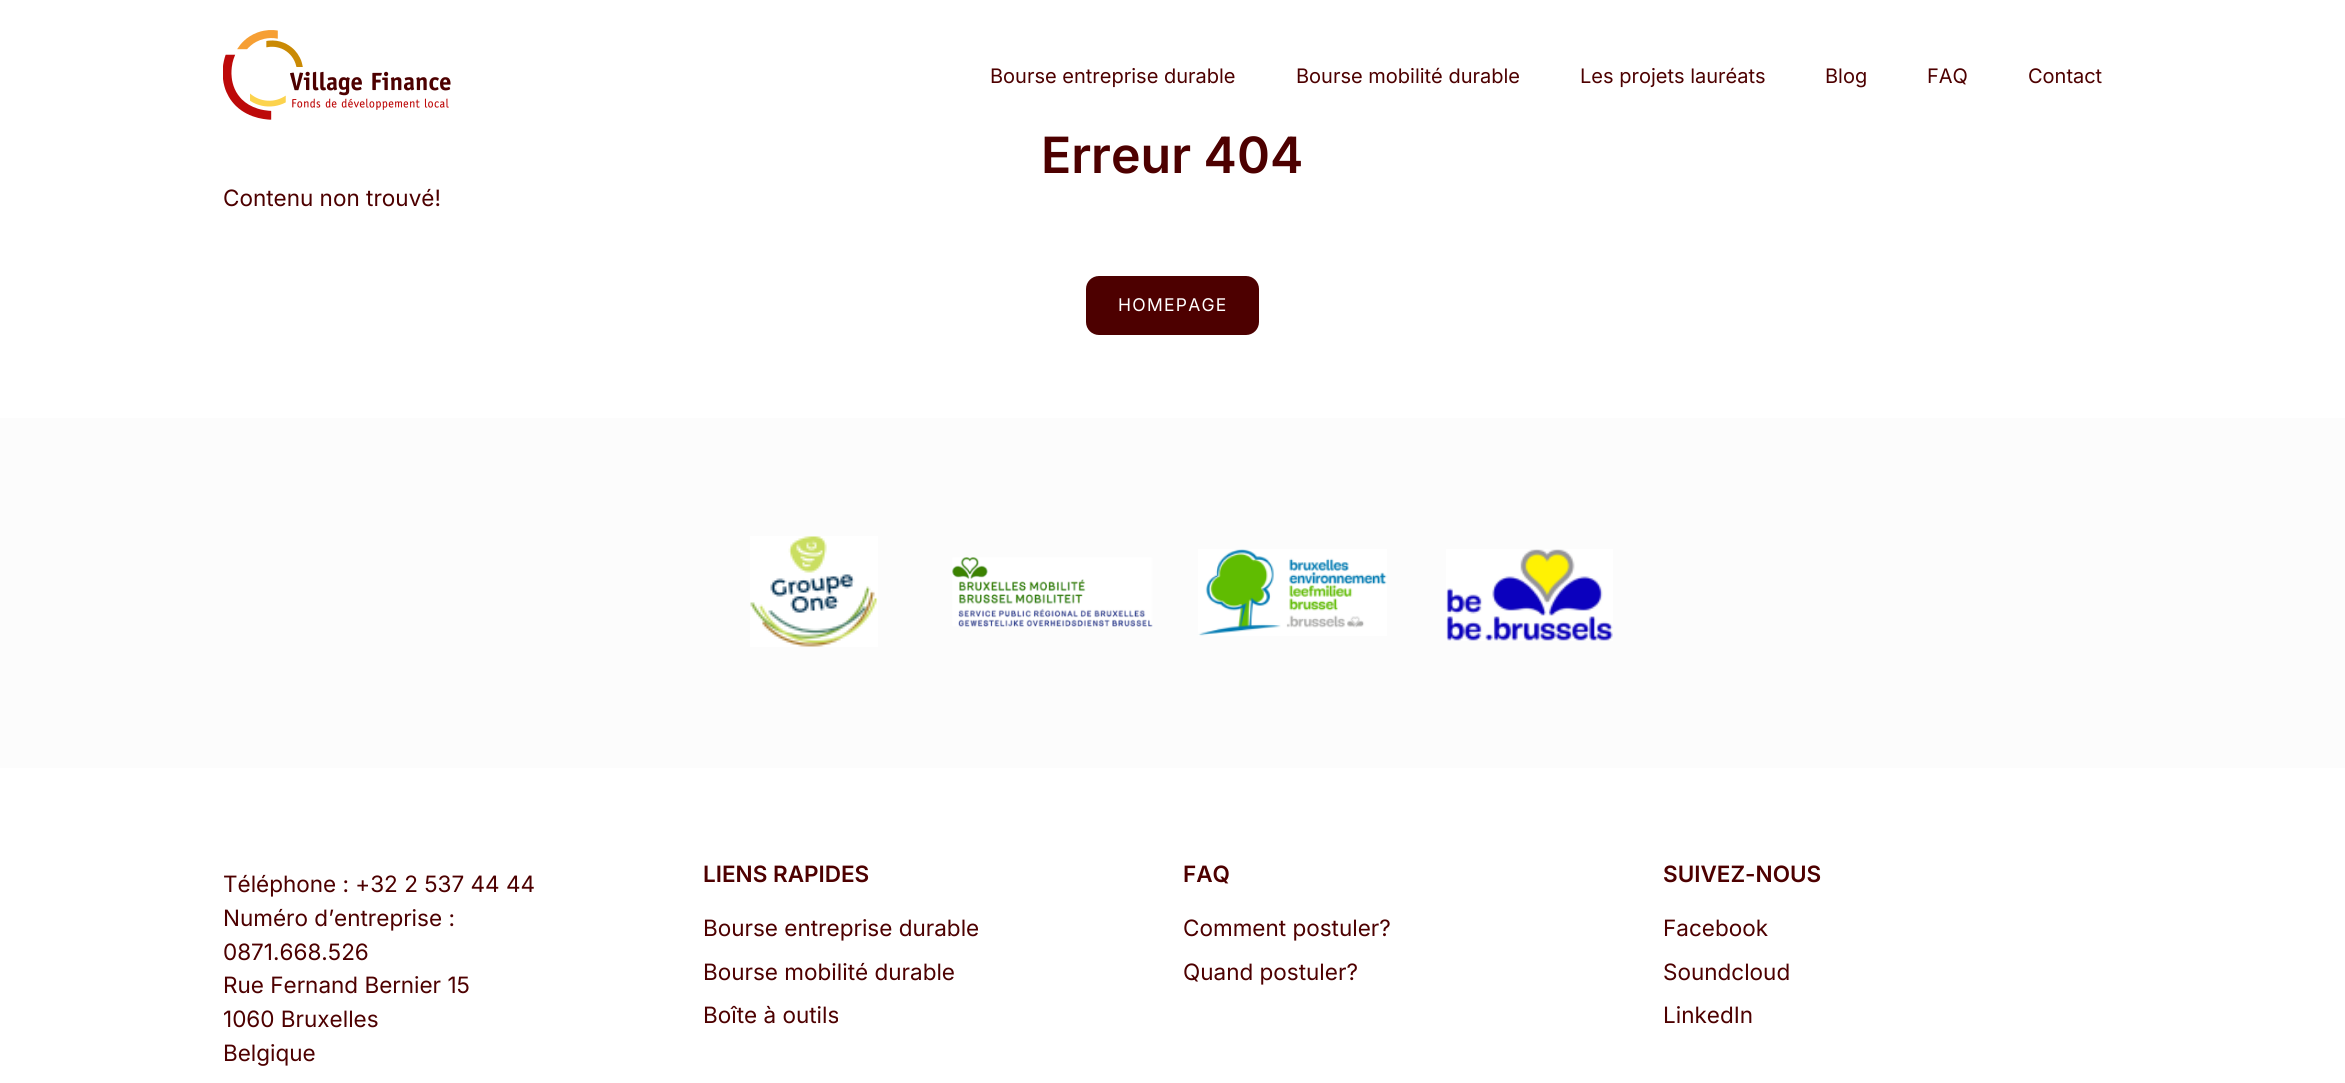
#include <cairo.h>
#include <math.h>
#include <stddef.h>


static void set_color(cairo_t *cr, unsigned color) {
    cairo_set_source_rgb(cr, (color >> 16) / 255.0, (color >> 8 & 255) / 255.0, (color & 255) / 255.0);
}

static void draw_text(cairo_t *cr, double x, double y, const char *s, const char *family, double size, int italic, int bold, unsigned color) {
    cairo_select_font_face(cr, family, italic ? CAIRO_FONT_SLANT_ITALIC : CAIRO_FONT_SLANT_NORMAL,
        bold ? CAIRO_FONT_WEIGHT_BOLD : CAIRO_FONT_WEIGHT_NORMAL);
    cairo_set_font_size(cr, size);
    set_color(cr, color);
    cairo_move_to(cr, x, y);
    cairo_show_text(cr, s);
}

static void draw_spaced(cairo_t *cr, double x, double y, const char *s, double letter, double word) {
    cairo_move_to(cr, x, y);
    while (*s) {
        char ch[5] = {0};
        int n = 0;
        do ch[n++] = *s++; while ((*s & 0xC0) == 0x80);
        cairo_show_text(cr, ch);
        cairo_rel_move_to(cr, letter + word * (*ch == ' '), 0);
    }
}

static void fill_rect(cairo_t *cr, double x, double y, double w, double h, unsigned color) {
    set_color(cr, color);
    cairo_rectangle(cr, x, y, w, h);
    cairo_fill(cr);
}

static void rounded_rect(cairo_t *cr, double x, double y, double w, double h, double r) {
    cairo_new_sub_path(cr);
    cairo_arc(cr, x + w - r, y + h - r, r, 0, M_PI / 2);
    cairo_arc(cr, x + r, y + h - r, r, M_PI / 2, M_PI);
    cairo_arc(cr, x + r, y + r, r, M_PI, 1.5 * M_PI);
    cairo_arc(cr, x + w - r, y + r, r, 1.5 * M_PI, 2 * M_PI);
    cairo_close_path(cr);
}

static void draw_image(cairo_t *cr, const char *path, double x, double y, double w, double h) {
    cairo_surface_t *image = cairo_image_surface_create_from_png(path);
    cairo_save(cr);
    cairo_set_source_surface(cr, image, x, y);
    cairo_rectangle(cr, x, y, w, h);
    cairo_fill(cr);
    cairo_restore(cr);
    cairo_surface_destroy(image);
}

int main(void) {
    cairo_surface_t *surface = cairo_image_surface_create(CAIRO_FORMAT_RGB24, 2345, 1083);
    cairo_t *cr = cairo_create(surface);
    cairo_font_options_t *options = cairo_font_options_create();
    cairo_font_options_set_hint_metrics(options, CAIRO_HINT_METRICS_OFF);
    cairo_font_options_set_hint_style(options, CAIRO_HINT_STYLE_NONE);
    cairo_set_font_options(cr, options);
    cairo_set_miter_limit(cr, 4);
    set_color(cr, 0xFFFFFF);
    cairo_paint(cr);
    draw_image(cr, "assets/img1.png", 223, 30, 228, 90);
    draw_text(cr, 990, 83, "Bourse entreprise durable", "Inter", 20, 0, 0, 0x4D0000);
    draw_text(cr, 1296, 83, "Bourse mobilité durable", "Inter", 20, 0, 0, 0x4D0000);
    draw_text(cr, 1580, 83, "Les projets lauréats", "Inter", 20, 0, 0, 0x4D0000);
    draw_text(cr, 1825, 83, "Blog", "Inter", 20, 0, 0, 0x4D0000);
    draw_text(cr, 1927, 83, "FAQ", "Inter", 20, 0, 0, 0x4D0000);
    draw_text(cr, 2028, 83, "Contact", "Inter", 20, 0, 0, 0x4D0000);
    draw_text(cr, 1041, 173, "Erreur 404", "Inter SemiBold", 50, 0, 0, 0x4D0000);
    draw_text(cr, 223, 206, "Contenu non trouvé!", "Inter", 22.5, 0, 0, 0x4D0000);
    rounded_rect(cr, 1086, 276, 173, 59, 13);
    cairo_fill(cr);
    cairo_set_font_size(cr, 17.5);
    set_color(cr, 0xFFFFFF);
    draw_spaced(cr, 1118, 311, "HOMEPAGE", 1.25, 0);
    fill_rect(cr, 0, 418, 2345, 350, 0xFCFCFC);
    draw_image(cr, "assets/img2.png", 750, 536, 128, 111);
    draw_image(cr, "assets/img3.png", 952, 557, 201, 70);
    draw_image(cr, "assets/img4.png", 1198, 549, 189, 87);
    draw_image(cr, "assets/img5.png", 1446, 549, 167, 92);
    draw_text(cr, 223, 892, "Téléphone : +32 2 537 44 44", "Inter", 22.5, 0, 0, 0x4D0000);
    draw_text(cr, 223, 926, "Numéro d’entreprise :", "Inter", 22.5, 0, 0, 0x4D0000);
    draw_text(cr, 223, 960, "0871.668.526", "Inter", 22.5, 0, 0, 0x4D0000);
    draw_text(cr, 223, 993, "Rue Fernand Bernier 15", "Inter", 22.5, 0, 0, 0x4D0000);
    draw_text(cr, 223, 1027, "1060 Bruxelles", "Inter", 22.5, 0, 0, 0x4D0000);
    draw_text(cr, 223, 1061, "Belgique", "Inter", 22.5, 0, 0, 0x4D0000);
    draw_text(cr, 703, 882, "LIENS RAPIDES", "Inter SemiBold", 22.5, 0, 0, 0x4D0000);
    draw_text(cr, 703, 936, "Bourse entreprise durable", "Inter", 22.5, 0, 0, 0x4D0000);
    draw_text(cr, 703, 980, "Bourse mobilité durable", "Inter", 22.5, 0, 0, 0x4D0000);
    draw_text(cr, 703, 1023, "Boîte à outils", "Inter", 22.5, 0, 0, 0x4D0000);
    draw_text(cr, 1183, 882, "FAQ", "Inter SemiBold", 22.5, 0, 0, 0x4D0000);
    draw_text(cr, 1183, 936, "Comment postuler?", "Inter", 22.5, 0, 0, 0x4D0000);
    draw_text(cr, 1183, 980, "Quand postuler?", "Inter", 22.5, 0, 0, 0x4D0000);
    draw_text(cr, 1663, 882, "SUIVEZ-NOUS", "Inter SemiBold", 22.5, 0, 0, 0x4D0000);
    draw_text(cr, 1663, 936, "Facebook", "Inter", 22.5, 0, 0, 0x4D0000);
    draw_text(cr, 1663, 980, "Soundcloud", "Inter", 22.5, 0, 0, 0x4D0000);
    draw_text(cr, 1663, 1023, "LinkedIn", "Inter", 22.5, 0, 0, 0x4D0000);
    cairo_surface_write_to_png(surface, "output.png");
    cairo_font_options_destroy(options);
    cairo_destroy(cr);
    cairo_surface_destroy(surface);
    return 0;
}
